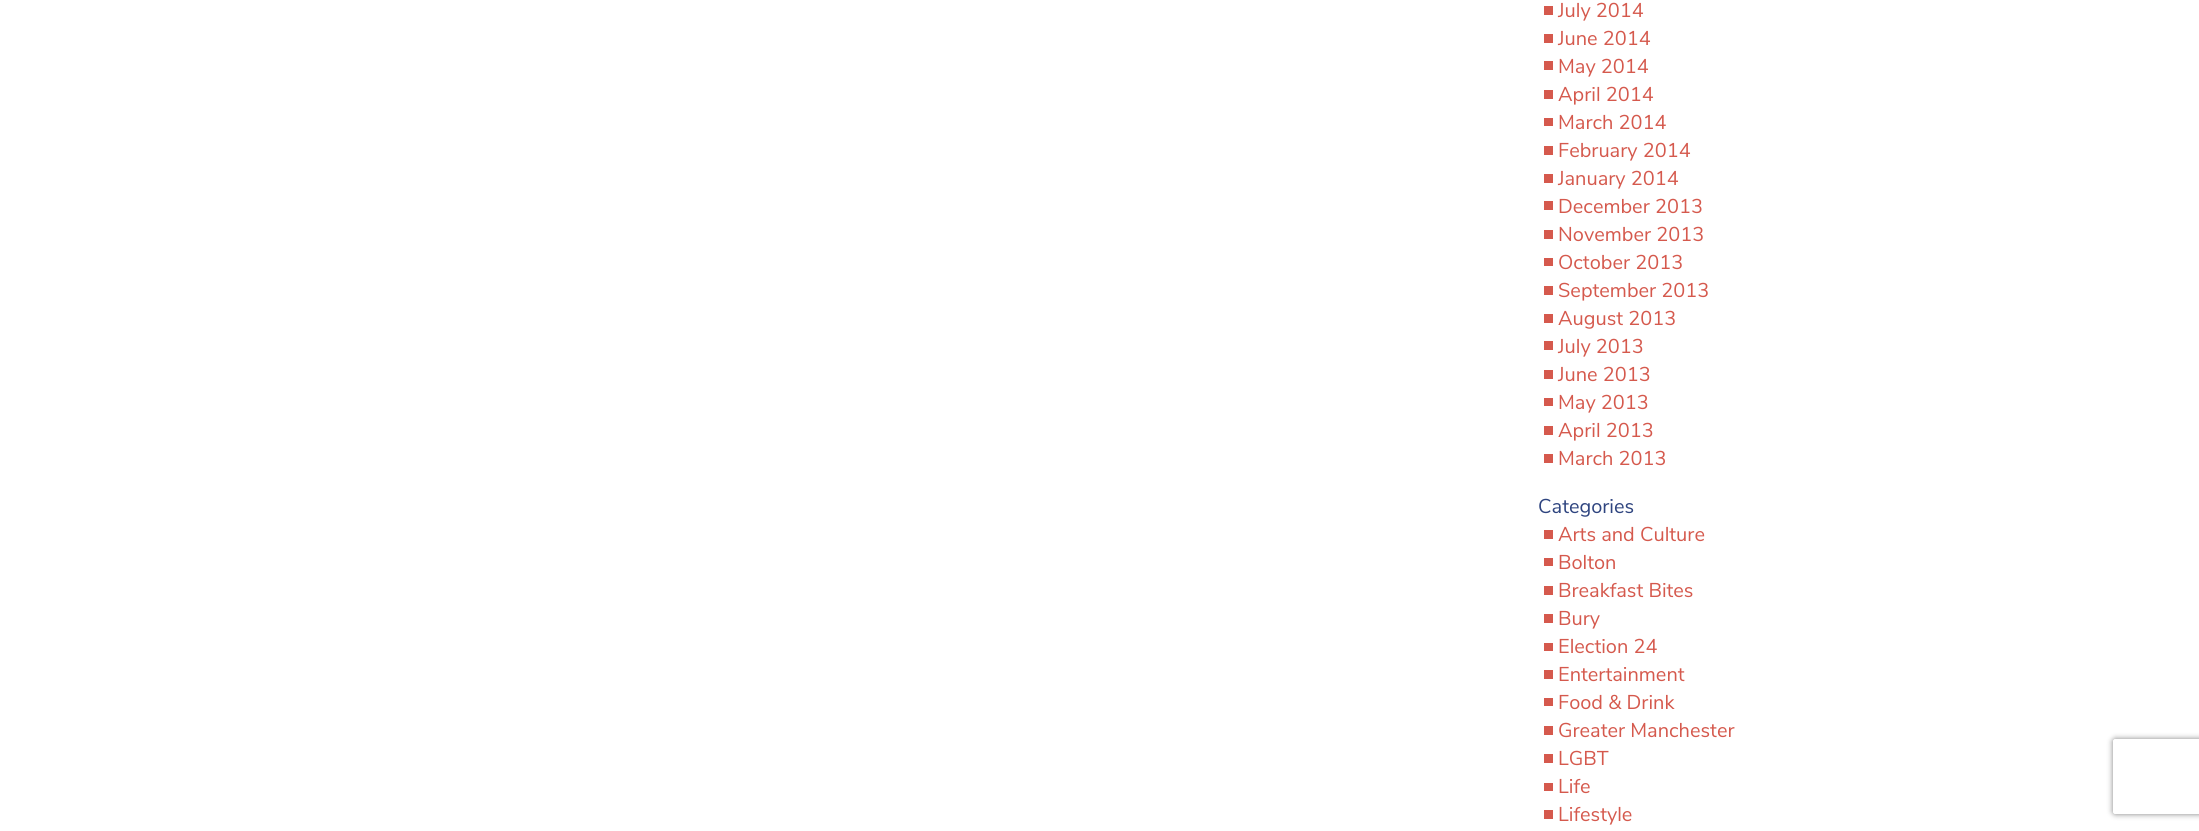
#include <cairo.h>
#include <math.h>
#include <stddef.h>


static void set_color(cairo_t *cr, unsigned color) {
    cairo_set_source_rgb(cr, (color >> 16) / 255.0, (color >> 8 & 255) / 255.0, (color & 255) / 255.0);
}

static void draw_text(cairo_t *cr, double x, double y, const char *s, const char *family, double size, int italic, int bold, unsigned color) {
    cairo_select_font_face(cr, family, italic ? CAIRO_FONT_SLANT_ITALIC : CAIRO_FONT_SLANT_NORMAL,
        bold ? CAIRO_FONT_WEIGHT_BOLD : CAIRO_FONT_WEIGHT_NORMAL);
    cairo_set_font_size(cr, size);
    set_color(cr, color);
    cairo_move_to(cr, x, y);
    cairo_show_text(cr, s);
}

static void fill_rect(cairo_t *cr, double x, double y, double w, double h, unsigned color) {
    set_color(cr, color);
    cairo_rectangle(cr, x, y, w, h);
    cairo_fill(cr);
}

static void rounded_rect(cairo_t *cr, double x, double y, double w, double h, double r) {
    cairo_new_sub_path(cr);
    cairo_arc(cr, x + w - r, y + h - r, r, 0, M_PI / 2);
    cairo_arc(cr, x + r, y + h - r, r, M_PI / 2, M_PI);
    cairo_arc(cr, x + r, y + r, r, M_PI, 1.5 * M_PI);
    cairo_arc(cr, x + w - r, y + r, r, 1.5 * M_PI, 2 * M_PI);
    cairo_close_path(cr);
}

static void draw_shadow(cairo_t *cr, double x, double y, double w, double h, double r, double blur, double alpha) {
    cairo_push_group_with_content(cr, CAIRO_CONTENT_ALPHA);
    cairo_set_operator(cr, CAIRO_OPERATOR_SOURCE);
    for (int i = 15; i >= -15 && fmin(w, h) + blur * i / 3 > 0; i -= 2) {
        double e = blur * i / 6;
        cairo_set_source_rgba(cr, 0, 0, 0, alpha * erfc((i - 1) / 8.5) / 2);
        rounded_rect(cr, x - e, y - e, w + 2 * e, h + 2 * e, fmax(0, fmin(r + e + blur * .6, fmin(w, h) / 2 + e)));
        cairo_fill(cr);
    }
    cairo_pattern_t *soft = cairo_pop_group(cr);
    cairo_mask(cr, soft);
    cairo_pattern_destroy(soft);
}

int main(void) {
    cairo_surface_t *surface = cairo_image_surface_create(CAIRO_FORMAT_RGB24, 2199, 831);
    cairo_t *cr = cairo_create(surface);
    cairo_font_options_t *options = cairo_font_options_create();
    cairo_font_options_set_hint_metrics(options, CAIRO_HINT_METRICS_OFF);
    cairo_font_options_set_hint_style(options, CAIRO_HINT_STYLE_NONE);
    cairo_set_font_options(cr, options);
    cairo_set_miter_limit(cr, 4);
    set_color(cr, 0xFFFFFF);
    cairo_paint(cr);
    fill_rect(cr, 1544, 6, 9, 9, 0xD5594D);
    draw_text(cr, 1558, 17, "July 2014", "Nunito Sans", 20, 0, 0, 0xD5594D);
    fill_rect(cr, 1544, 34, 9, 9, 0xD5594D);
    draw_text(cr, 1558, 45, "June 2014", "Nunito Sans", 20, 0, 0, 0xD5594D);
    fill_rect(cr, 1544, 61, 9, 9, 0xD5594D);
    draw_text(cr, 1558, 73, "May 2014", "Nunito Sans", 20, 0, 0, 0xD5594D);
    fill_rect(cr, 1544, 90, 9, 9, 0xD5594D);
    draw_text(cr, 1558, 101, "April 2014", "Nunito Sans", 20, 0, 0, 0xD5594D);
    fill_rect(cr, 1544, 118, 9, 8, 0xD5594D);
    draw_text(cr, 1558, 129, "March 2014", "Nunito Sans", 20, 0, 0, 0xD5594D);
    fill_rect(cr, 1544, 146, 9, 9, 0xD5594D);
    draw_text(cr, 1558, 157, "February 2014", "Nunito Sans", 20, 0, 0, 0xD5594D);
    fill_rect(cr, 1544, 174, 9, 9, 0xD5594D);
    draw_text(cr, 1558, 185, "January 2014", "Nunito Sans", 20, 0, 0, 0xD5594D);
    fill_rect(cr, 1544, 201, 9, 9, 0xD5594D);
    draw_text(cr, 1558, 213, "December 2013", "Nunito Sans", 20, 0, 0, 0xD5594D);
    fill_rect(cr, 1544, 230, 9, 9, 0xD5594D);
    draw_text(cr, 1558, 241, "November 2013", "Nunito Sans", 20, 0, 0, 0xD5594D);
    fill_rect(cr, 1544, 258, 9, 8, 0xD5594D);
    draw_text(cr, 1558, 269, "October 2013", "Nunito Sans", 20, 0, 0, 0xD5594D);
    fill_rect(cr, 1544, 286, 9, 9, 0xD5594D);
    draw_text(cr, 1558, 297, "September 2013", "Nunito Sans", 20, 0, 0, 0xD5594D);
    fill_rect(cr, 1544, 314, 9, 9, 0xD5594D);
    draw_text(cr, 1558, 325, "August 2013", "Nunito Sans", 20, 0, 0, 0xD5594D);
    fill_rect(cr, 1544, 341, 9, 9, 0xD5594D);
    draw_text(cr, 1558, 353, "July 2013", "Nunito Sans", 20, 0, 0, 0xD5594D);
    fill_rect(cr, 1544, 370, 9, 9, 0xD5594D);
    draw_text(cr, 1558, 381, "June 2013", "Nunito Sans", 20, 0, 0, 0xD5594D);
    fill_rect(cr, 1544, 398, 9, 8, 0xD5594D);
    draw_text(cr, 1558, 409, "May 2013", "Nunito Sans", 20, 0, 0, 0xD5594D);
    fill_rect(cr, 1544, 426, 9, 9, 0xD5594D);
    draw_text(cr, 1558, 437, "April 2013", "Nunito Sans", 20, 0, 0, 0xD5594D);
    fill_rect(cr, 1544, 454, 9, 9, 0xD5594D);
    draw_text(cr, 1558, 465, "March 2013", "Nunito Sans", 20, 0, 0, 0xD5594D);
    draw_text(cr, 1538, 513, "Categories", "Nunito Sans", 20, 0, 0, 0x2E447F);
    fill_rect(cr, 1544, 530, 9, 9, 0xD5594D);
    draw_text(cr, 1558, 541, "Arts and Culture", "Nunito Sans", 20, 0, 0, 0xD5594D);
    fill_rect(cr, 1544, 558, 9, 8, 0xD5594D);
    draw_text(cr, 1558, 569, "Bolton", "Nunito Sans", 20, 0, 0, 0xD5594D);
    fill_rect(cr, 1544, 586, 9, 9, 0xD5594D);
    draw_text(cr, 1558, 597, "Breakfast Bites", "Nunito Sans", 20, 0, 0, 0xD5594D);
    fill_rect(cr, 1544, 614, 9, 9, 0xD5594D);
    draw_text(cr, 1558, 625, "Bury", "Nunito Sans", 20, 0, 0, 0xD5594D);
    fill_rect(cr, 1544, 643, 9, 8, 0xD5594D);
    draw_text(cr, 1558, 653, "Election 24", "Nunito Sans", 20, 0, 0, 0xD5594D);
    fill_rect(cr, 1544, 670, 9, 9, 0xD5594D);
    draw_text(cr, 1558, 681, "Entertainment", "Nunito Sans", 20, 0, 0, 0xD5594D);
    fill_rect(cr, 1544, 698, 9, 8, 0xD5594D);
    draw_text(cr, 1558, 709, "Food & Drink", "Nunito Sans", 20, 0, 0, 0xD5594D);
    fill_rect(cr, 1544, 726, 9, 9, 0xD5594D);
    draw_text(cr, 1558, 737, "Greater Manchester", "Nunito Sans", 20, 0, 0, 0xD5594D);
    fill_rect(cr, 1544, 754, 9, 9, 0xD5594D);
    draw_text(cr, 1558, 765, "LGBT", "Nunito Sans", 20, 0, 0, 0xD5594D);
    fill_rect(cr, 1544, 783, 9, 8, 0xD5594D);
    draw_text(cr, 1558, 793, "Life", "Nunito Sans", 20, 0, 0, 0xD5594D);
    fill_rect(cr, 1544, 810, 9, 9, 0xD5594D);
    draw_text(cr, 1558, 821, "Lifestyle", "Nunito Sans", 20, 0, 0, 0xD5594D);
    cairo_save(cr);
    cairo_set_fill_rule(cr, CAIRO_FILL_RULE_EVEN_ODD);
    cairo_new_path(cr);
    cairo_move_to(cr, 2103, 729);
    cairo_line_to(cr, 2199, 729);
    cairo_line_to(cr, 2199, 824);
    cairo_line_to(cr, 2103, 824);
    cairo_close_path(cr);
    cairo_move_to(cr, 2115.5, 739);
    cairo_line_to(cr, 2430.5, 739);
    cairo_curve_to(cr, 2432, 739, 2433, 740, 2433, 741.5);
    cairo_line_to(cr, 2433, 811.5);
    cairo_curve_to(cr, 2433, 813, 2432, 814, 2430.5, 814);
    cairo_line_to(cr, 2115.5, 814);
    cairo_curve_to(cr, 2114, 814, 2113, 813, 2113, 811.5);
    cairo_line_to(cr, 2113, 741.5);
    cairo_curve_to(cr, 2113, 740, 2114, 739, 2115.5, 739);
    cairo_close_path(cr);
    cairo_clip(cr);
    set_color(cr, 0x808080);
    draw_shadow(cr, 2113, 739, 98, 75, 2.5, 3, 1);
    cairo_restore(cr);
    cairo_surface_write_to_png(surface, "output.png");
    cairo_font_options_destroy(options);
    cairo_destroy(cr);
    cairo_surface_destroy(surface);
    return 0;
}
